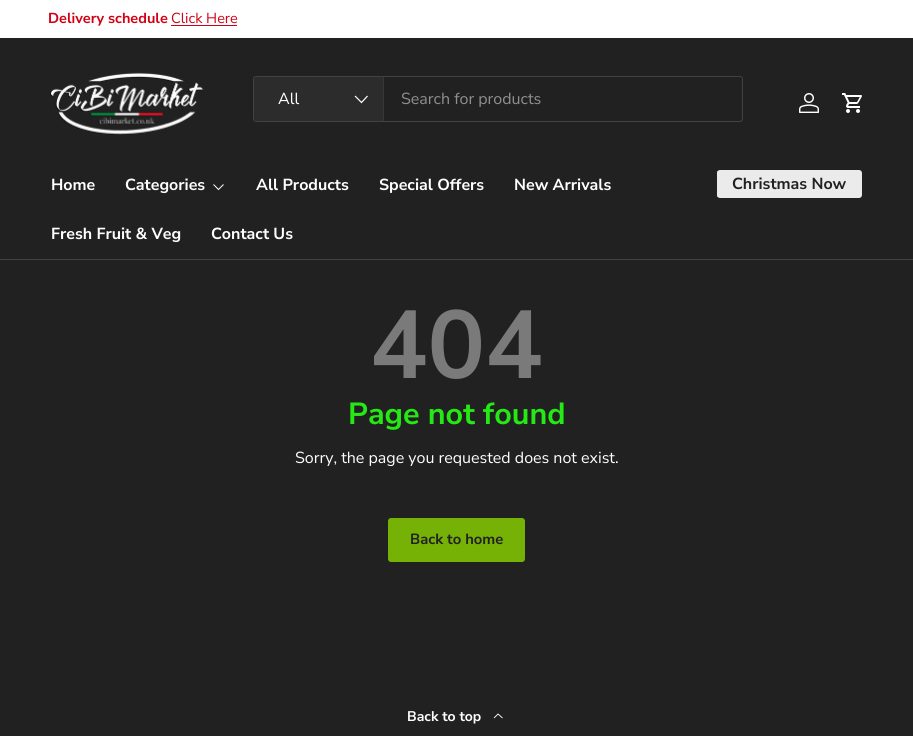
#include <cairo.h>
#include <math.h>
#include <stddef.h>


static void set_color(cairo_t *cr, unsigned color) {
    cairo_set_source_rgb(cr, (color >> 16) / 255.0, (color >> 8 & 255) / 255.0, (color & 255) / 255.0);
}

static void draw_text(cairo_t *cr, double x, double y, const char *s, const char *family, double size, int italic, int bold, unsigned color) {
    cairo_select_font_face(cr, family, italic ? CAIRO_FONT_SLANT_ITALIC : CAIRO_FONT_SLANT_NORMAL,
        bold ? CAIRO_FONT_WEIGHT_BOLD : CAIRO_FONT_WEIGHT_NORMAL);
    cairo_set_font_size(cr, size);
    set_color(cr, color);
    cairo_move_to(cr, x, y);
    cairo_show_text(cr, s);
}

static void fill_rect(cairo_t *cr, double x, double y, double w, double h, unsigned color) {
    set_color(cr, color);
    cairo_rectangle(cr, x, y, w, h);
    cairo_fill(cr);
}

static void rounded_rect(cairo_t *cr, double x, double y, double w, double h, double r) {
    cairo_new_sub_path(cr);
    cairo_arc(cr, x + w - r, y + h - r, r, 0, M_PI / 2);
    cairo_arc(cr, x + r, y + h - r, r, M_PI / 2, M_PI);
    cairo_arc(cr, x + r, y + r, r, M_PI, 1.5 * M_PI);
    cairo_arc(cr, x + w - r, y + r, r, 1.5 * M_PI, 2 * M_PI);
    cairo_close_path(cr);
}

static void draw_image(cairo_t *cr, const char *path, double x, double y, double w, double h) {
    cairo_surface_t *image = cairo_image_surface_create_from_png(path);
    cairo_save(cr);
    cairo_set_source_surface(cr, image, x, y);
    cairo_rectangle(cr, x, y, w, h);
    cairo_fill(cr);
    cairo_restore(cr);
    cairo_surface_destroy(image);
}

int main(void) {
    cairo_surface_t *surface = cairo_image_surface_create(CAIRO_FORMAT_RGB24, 913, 736);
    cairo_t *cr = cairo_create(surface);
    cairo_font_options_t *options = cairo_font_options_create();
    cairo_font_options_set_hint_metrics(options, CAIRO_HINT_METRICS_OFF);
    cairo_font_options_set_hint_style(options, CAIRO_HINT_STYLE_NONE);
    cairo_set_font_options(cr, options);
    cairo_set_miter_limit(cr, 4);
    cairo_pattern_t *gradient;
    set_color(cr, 0x212121);
    cairo_paint(cr);
    fill_rect(cr, 0, 0, 913, 38, 0xFFFFFF);
    draw_text(cr, 48, 23, "Delivery schedule", "Nunito Sans", 14.5, 0, 1, 0xD20014);
    draw_text(cr, 171, 23, "Click Here", "Nunito Sans", 14.5, 0, 0, 0xD20014);
    fill_rect(cr, 171, 25, 66, 1, 0xD20014);
    draw_image(cr, "assets/img1.png", 50, 72, 154, 63);
    rounded_rect(cr, 253.5, 76.5, 489, 45, 2.5);
    set_color(cr, 0x424242);
    cairo_set_line_width(cr, 1);
    cairo_stroke(cr);
    set_color(cr, 0x2C2C2C);
    cairo_new_path(cr);
    cairo_move_to(cr, 257, 77);
    cairo_line_to(cr, 384, 77);
    cairo_line_to(cr, 384, 121);
    cairo_line_to(cr, 257, 121);
    cairo_curve_to(cr, 255.5, 121, 254, 119.5, 254, 118);
    cairo_line_to(cr, 254, 80);
    cairo_curve_to(cr, 254, 78.5, 255.5, 77, 257, 77);
    cairo_close_path(cr);
    cairo_fill(cr);
    fill_rect(cr, 383, 77, 1, 44, 0x373737);
    draw_text(cr, 278, 104, "All", "Nunito Sans", 16, 0, 0, 0xFFFFFF);
    cairo_new_path(cr);
    cairo_move_to(cr, 367.5, 96);
    cairo_line_to(cr, 361.5, 102.5);
    cairo_line_to(cr, 355, 96);
    cairo_set_line_width(cr, 1.2);
    cairo_stroke(cr);
    draw_text(cr, 401, 104, "Search for products", "Nunito Sans", 16, 0, 0, 0x909090);
    draw_image(cr, "assets/img2.png", 799, 93, 20, 20);
    draw_image(cr, "assets/img3.png", 842, 93, 20, 20);
    draw_text(cr, 51, 190, "Home", "Nunito Sans", 16, 0, 1, 0xFFFFFF);
    draw_text(cr, 125, 190, "Categories", "Nunito Sans", 16, 0, 1, 0xFFFFFF);
    cairo_new_path(cr);
    cairo_move_to(cr, 223.5, 184.5);
    cairo_line_to(cr, 218.5, 189.5);
    cairo_line_to(cr, 213.5, 184.5);
    cairo_set_line_width(cr, 1);
    cairo_stroke(cr);
    draw_text(cr, 256, 190, "All Products", "Nunito Sans", 16, 0, 1, 0xFFFFFF);
    draw_text(cr, 379, 190, "Special Offers", "Nunito Sans", 16, 0, 1, 0xFFFFFF);
    draw_text(cr, 514, 190, "New Arrivals", "Nunito Sans", 16, 0, 1, 0xFFFFFF);
    draw_text(cr, 51, 239, "Fresh Fruit & Veg", "Nunito Sans", 16, 0, 1, 0xFFFFFF);
    draw_text(cr, 211, 239, "Contact Us", "Nunito Sans", 16, 0, 1, 0xFFFFFF);
    cairo_save(cr);
    rounded_rect(cr, 717, 170, 145, 28, 3);
    cairo_clip(cr);
    gradient = cairo_pattern_create_linear(442, 133, 851, 235);
    cairo_pattern_add_color_stop_rgba(gradient, 0.6, 0.835, 0.835, 0.835, 1);
    cairo_pattern_add_color_stop_rgba(gradient, 0.6, 0.922, 0.922, 0.922, 1);
    cairo_pattern_add_color_stop_rgba(gradient, 1, 0.922, 0.922, 0.922, 1);
    cairo_set_source(cr, gradient);
    cairo_pattern_destroy(gradient);
    cairo_rectangle(cr, 717, 171, 144, 26);
    cairo_fill(cr);
    cairo_restore(cr);
    rounded_rect(cr, 717.5, 170.5, 144, 27, 2.5);
    set_color(cr, 0xEBEBEB);
    cairo_stroke(cr);
    draw_text(cr, 732, 189, "Christmas Now", "Nunito Sans", 16, 0, 1, 0x212121);
    fill_rect(cr, 0, 259, 913, 1, 0x424242);
    draw_text(cr, 370, 378, "404", "Nunito Sans", 96, 0, 1, 0x7A7A7A);
    draw_text(cr, 348, 424, "Page not found", "Nunito Sans", 30.5, 0, 1, 0x25E914);
    draw_text(cr, 295, 463, "Sorry, the page you requested does not exist.", "Nunito Sans", 16, 0, 0, 0xFFFFFF);
    gradient = cairo_pattern_create_linear(121, 490, 518, 590);
    cairo_pattern_add_color_stop_rgba(gradient, 0.6, 0.451, 0.663, 0.043, 1);
    cairo_pattern_add_color_stop_rgba(gradient, 0.6, 0.463, 0.694, 0.024, 1);
    cairo_pattern_add_color_stop_rgba(gradient, 1, 0.463, 0.694, 0.024, 1);
    cairo_set_source(cr, gradient);
    cairo_pattern_destroy(gradient);
    rounded_rect(cr, 388, 518, 137, 44, 3);
    cairo_fill(cr);
    draw_text(cr, 410, 544, "Back to home", "Nunito Sans", 14.75, 0, 1, 0x212121);
    draw_text(cr, 407, 721, "Back to top", "Nunito Sans", 14, 0, 1, 0xFFFFFF);
    cairo_new_path(cr);
    cairo_move_to(cr, 494, 718);
    cairo_line_to(cr, 498, 714);
    cairo_line_to(cr, 502.5, 718);
    cairo_set_line_width(cr, 0.9);
    cairo_stroke(cr);
    cairo_surface_write_to_png(surface, "output.png");
    cairo_font_options_destroy(options);
    cairo_destroy(cr);
    cairo_surface_destroy(surface);
    return 0;
}
